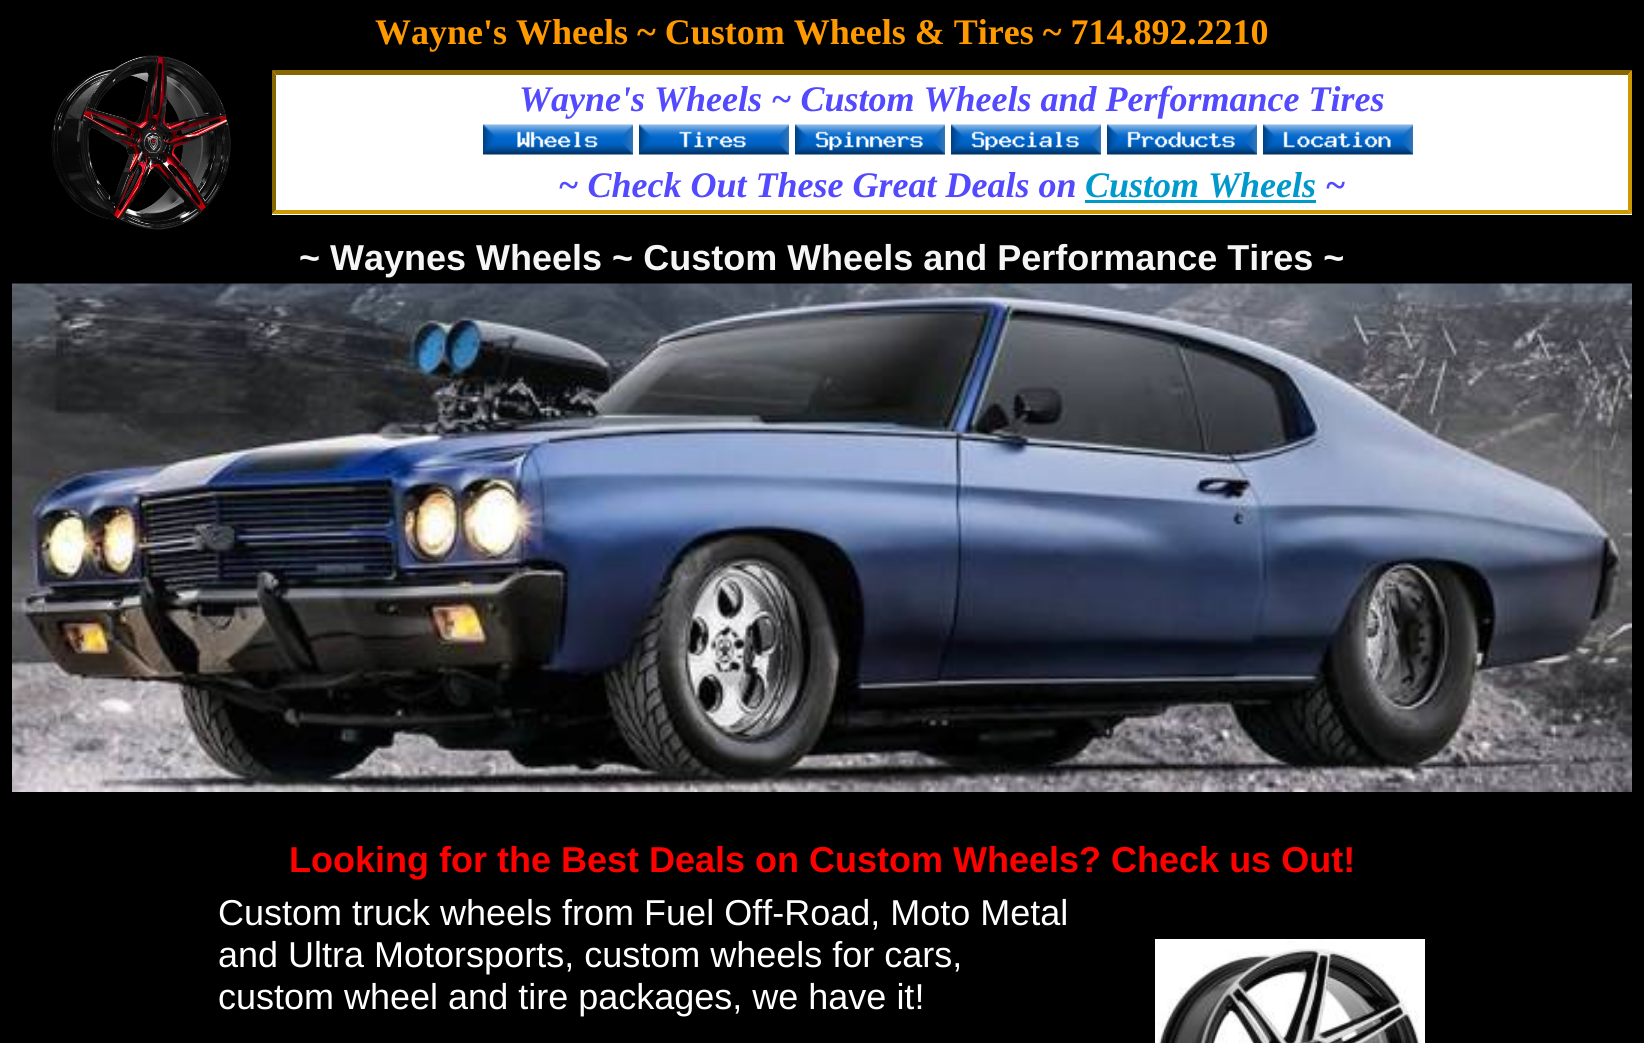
#include <cairo.h>
#include <math.h>
#include <stddef.h>


static void set_color(cairo_t *cr, unsigned color) {
    cairo_set_source_rgb(cr, (color >> 16) / 255.0, (color >> 8 & 255) / 255.0, (color & 255) / 255.0);
}

static void draw_text(cairo_t *cr, double x, double y, const char *s, const char *family, double size, int italic, int bold, unsigned color) {
    cairo_select_font_face(cr, family, italic ? CAIRO_FONT_SLANT_ITALIC : CAIRO_FONT_SLANT_NORMAL,
        bold ? CAIRO_FONT_WEIGHT_BOLD : CAIRO_FONT_WEIGHT_NORMAL);
    cairo_set_font_size(cr, size);
    set_color(cr, color);
    cairo_move_to(cr, x, y);
    cairo_show_text(cr, s);
}

static void fill_rect(cairo_t *cr, double x, double y, double w, double h, unsigned color) {
    set_color(cr, color);
    cairo_rectangle(cr, x, y, w, h);
    cairo_fill(cr);
}

static void draw_image(cairo_t *cr, const char *path, double x, double y, double w, double h) {
    cairo_surface_t *image = cairo_image_surface_create_from_png(path);
    cairo_save(cr);
    cairo_set_source_surface(cr, image, x, y);
    cairo_rectangle(cr, x, y, w, h);
    cairo_fill(cr);
    cairo_restore(cr);
    cairo_surface_destroy(image);
}

int main(void) {
    cairo_surface_t *surface = cairo_image_surface_create(CAIRO_FORMAT_RGB24, 1644, 1043);
    cairo_t *cr = cairo_create(surface);
    cairo_font_options_t *options = cairo_font_options_create();
    cairo_font_options_set_hint_metrics(options, CAIRO_HINT_METRICS_OFF);
    cairo_font_options_set_hint_style(options, CAIRO_HINT_STYLE_NONE);
    cairo_set_font_options(cr, options);
    cairo_set_miter_limit(cr, 4);
    set_color(cr, 0x000000);
    cairo_paint(cr);
    draw_text(cr, 375, 44, "Wayne's Wheels ~ Custom Wheels & Tires ~ 714.892.2210", "Liberation Serif", 36, 0, 1, 0xFF9900);
    draw_image(cr, "assets/img1.png", 51, 55, 180, 175);
    fill_rect(cr, 272, 71, 1360, 144, 0xFFFFFF);
    set_color(cr, 0x886600);
    cairo_new_path(cr);
    cairo_move_to(cr, 272, 70);
    cairo_line_to(cr, 1632, 70);
    cairo_line_to(cr, 1628, 75);
    cairo_line_to(cr, 276, 75);
    cairo_close_path(cr);
    cairo_fill(cr);
    set_color(cr, 0xCC9900);
    cairo_new_path(cr);
    cairo_move_to(cr, 1632, 70);
    cairo_line_to(cr, 1632, 214);
    cairo_line_to(cr, 1628, 210);
    cairo_line_to(cr, 1628, 75);
    cairo_close_path(cr);
    cairo_fill(cr);
    cairo_new_path(cr);
    cairo_move_to(cr, 1632, 214);
    cairo_line_to(cr, 272, 214);
    cairo_line_to(cr, 276, 210);
    cairo_line_to(cr, 1628, 210);
    cairo_close_path(cr);
    cairo_fill(cr);
    set_color(cr, 0x886600);
    cairo_new_path(cr);
    cairo_move_to(cr, 272, 214);
    cairo_line_to(cr, 272, 70);
    cairo_line_to(cr, 276, 75);
    cairo_line_to(cr, 276, 210);
    cairo_close_path(cr);
    cairo_fill(cr);
    draw_text(cr, 519, 111, "Wayne's Wheels ~ Custom Wheels and Performance Tires", "Liberation Serif", 36, 1, 1, 0x5349FF);
    draw_image(cr, "assets/img2.png", 483, 124, 150, 31);
    draw_image(cr, "assets/img3.png", 639, 124, 150, 31);
    draw_image(cr, "assets/img4.png", 795, 124, 150, 31);
    draw_image(cr, "assets/img5.png", 951, 124, 150, 31);
    draw_image(cr, "assets/img6.png", 1107, 124, 150, 31);
    draw_image(cr, "assets/img7.png", 1263, 124, 150, 31);
    draw_text(cr, 558, 197, "~ Check Out These Great Deals on", "Liberation Serif", 36, 1, 1, 0x5349FF);
    draw_text(cr, 1085, 197, "Custom Wheels", "Liberation Serif", 36, 1, 1, 0x0099CC);
    fill_rect(cr, 1085, 200, 231, 3, 0x0099CC);
    draw_text(cr, 1325, 197, "~", "Liberation Serif", 36, 1, 1, 0x5349FF);
    draw_text(cr, 299, 270, "~ Waynes Wheels ~ Custom Wheels and Performance Tires ~", "Liberation Sans", 36, 0, 1, 0xF5F5F5);
    draw_image(cr, "assets/img8.png", 12, 283, 1620, 509);
    draw_text(cr, 289, 872, "Looking for the Best Deals on Custom Wheels? Check us Out!", "Liberation Sans", 36, 0, 1, 0xFF0000);
    draw_text(cr, 218, 925, "Custom truck wheels from Fuel Off-Road, Moto Metal", "Liberation Sans", 36, 0, 0, 0xFFFFFF);
    draw_text(cr, 218, 967, "and Ultra Motorsports, custom wheels for cars,", "Liberation Sans", 36, 0, 0, 0xFFFFFF);
    draw_text(cr, 218, 1009, "custom wheel and tire packages, we have it!", "Liberation Sans", 36, 0, 0, 0xFFFFFF);
    draw_image(cr, "assets/img9.png", 1155, 939, 270, 104);
    cairo_surface_write_to_png(surface, "output.png");
    cairo_font_options_destroy(options);
    cairo_destroy(cr);
    cairo_surface_destroy(surface);
    return 0;
}
